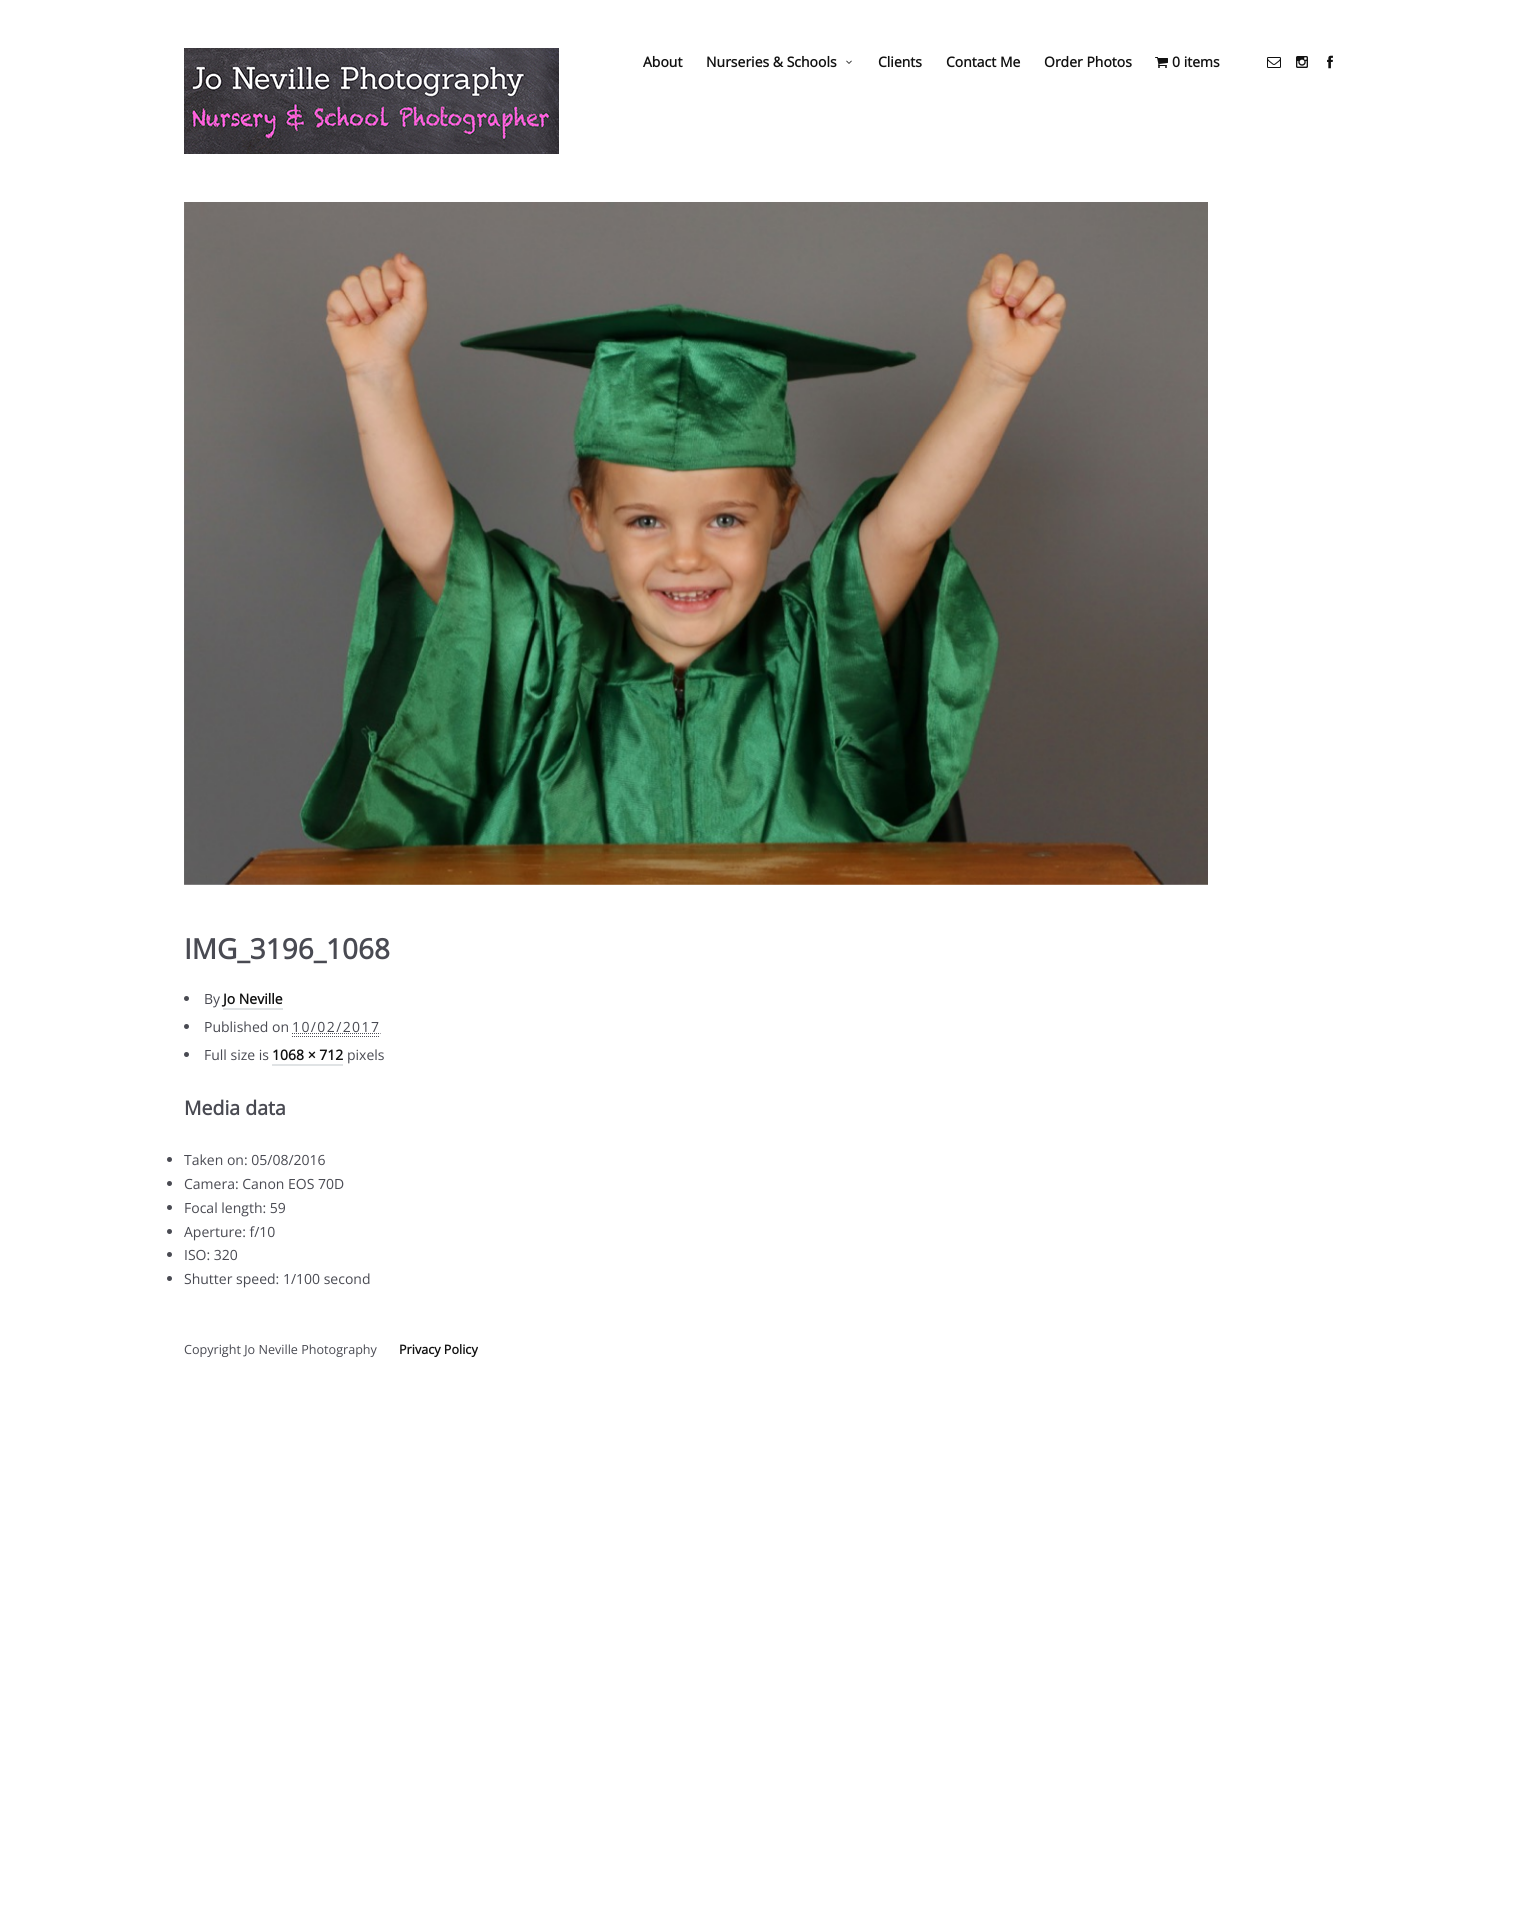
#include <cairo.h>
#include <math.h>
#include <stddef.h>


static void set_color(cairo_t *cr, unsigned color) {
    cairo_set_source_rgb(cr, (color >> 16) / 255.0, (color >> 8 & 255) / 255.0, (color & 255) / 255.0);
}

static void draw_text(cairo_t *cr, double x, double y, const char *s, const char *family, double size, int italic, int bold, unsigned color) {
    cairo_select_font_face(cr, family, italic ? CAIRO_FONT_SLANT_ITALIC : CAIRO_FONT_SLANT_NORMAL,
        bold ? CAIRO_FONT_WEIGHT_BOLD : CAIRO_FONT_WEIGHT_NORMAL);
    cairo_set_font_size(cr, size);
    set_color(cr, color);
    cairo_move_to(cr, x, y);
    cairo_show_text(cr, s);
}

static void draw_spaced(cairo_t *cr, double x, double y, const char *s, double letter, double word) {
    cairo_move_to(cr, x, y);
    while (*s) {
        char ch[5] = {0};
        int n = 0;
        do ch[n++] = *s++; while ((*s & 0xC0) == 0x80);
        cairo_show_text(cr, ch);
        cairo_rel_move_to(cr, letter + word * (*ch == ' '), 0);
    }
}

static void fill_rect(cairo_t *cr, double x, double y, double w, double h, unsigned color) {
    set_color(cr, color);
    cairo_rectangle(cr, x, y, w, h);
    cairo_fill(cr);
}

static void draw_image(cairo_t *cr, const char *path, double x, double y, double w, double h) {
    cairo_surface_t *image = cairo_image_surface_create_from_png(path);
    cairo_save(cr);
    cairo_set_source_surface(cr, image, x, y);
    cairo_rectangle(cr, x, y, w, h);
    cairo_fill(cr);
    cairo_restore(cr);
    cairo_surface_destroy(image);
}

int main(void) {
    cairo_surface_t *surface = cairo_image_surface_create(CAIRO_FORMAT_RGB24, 1527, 1926);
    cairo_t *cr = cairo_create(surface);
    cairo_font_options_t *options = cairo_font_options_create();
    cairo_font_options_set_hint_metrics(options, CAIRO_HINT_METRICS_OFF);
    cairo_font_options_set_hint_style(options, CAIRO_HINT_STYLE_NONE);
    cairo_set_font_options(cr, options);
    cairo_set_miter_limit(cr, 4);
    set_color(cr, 0xFFFFFF);
    cairo_paint(cr);
    draw_image(cr, "assets/img1.png", 184, 48, 375, 106);
    draw_text(cr, 643, 67, "About", "Open Sans", 14, 0, 1, 0x111111);
    draw_text(cr, 706, 67, "Nurseries & Schools", "Open Sans", 14, 0, 1, 0x111111);
    draw_image(cr, "assets/img2.png", 846, 60, 6, 4);
    draw_text(cr, 878, 67, "Clients", "Open Sans", 14, 0, 1, 0x111111);
    draw_text(cr, 946, 67, "Contact Me", "Open Sans", 14, 0, 1, 0x111111);
    draw_text(cr, 1044, 67, "Order Photos", "Open Sans", 14, 0, 1, 0x111111);
    draw_image(cr, "assets/img3.png", 1155, 57, 13, 11);
    draw_text(cr, 1172, 67, "0 items", "Open Sans", 14, 0, 1, 0x111111);
    draw_image(cr, "assets/img4.png", 1267, 57, 14, 11);
    draw_image(cr, "assets/img5.png", 1296, 56, 12, 12);
    draw_image(cr, "assets/img6.png", 1327, 55, 6, 14);
    draw_image(cr, "assets/img7.png", 184, 202, 1024, 683);
    draw_text(cr, 184, 959, "IMG_3196_1068", "Open Sans", 28, 0, 1, 0x494A52);
    cairo_new_path(cr);
    cairo_arc(cr, 186.5, 998.5, 2.5, 0, 2 * M_PI);
    cairo_fill(cr);
    draw_text(cr, 204, 1004, "By", "Open Sans", 14, 0, 0, 0x494A52);
    draw_text(cr, 223, 1004, "Jo Neville", "Open Sans", 14, 0, 1, 0x111111);
    fill_rect(cr, 223, 1008, 60, 2, 0xE0E3E5);
    set_color(cr, 0x494A52);
    cairo_new_path(cr);
    cairo_arc(cr, 186.5, 1026.5, 2.5, 0, 2 * M_PI);
    cairo_fill(cr);
    draw_text(cr, 204, 1032, "Published on", "Open Sans", 14, 0, 0, 0x494A52);
    draw_spaced(cr, 292, 1032, "10/02/2017", 1.4, 0);
    cairo_new_path(cr);
    cairo_move_to(cr, 292, 1036.5);
    cairo_line_to(cr, 380, 1036.5);
    cairo_set_line_width(cr, 1);
    cairo_set_dash(cr, (double[]){1, 1}, 2, 0);
    cairo_stroke(cr);
    cairo_new_path(cr);
    cairo_move_to(cr, 292, 1033.5);
    cairo_line_to(cr, 380.5, 1033.5);
    cairo_stroke(cr);
    cairo_arc(cr, 186.5, 1054.5, 2.5, 0, 2 * M_PI);
    cairo_fill(cr);
    draw_text(cr, 204, 1060, "Full size is", "Open Sans", 14, 0, 0, 0x494A52);
    draw_text(cr, 272, 1060, "1068 × 712", "Open Sans", 14, 0, 1, 0x111111);
    fill_rect(cr, 272, 1064, 71, 2, 0xE0E3E5);
    draw_text(cr, 347, 1060, "pixels", "Open Sans", 14, 0, 0, 0x494A52);
    draw_text(cr, 184, 1115, "Media data", "Open Sans", 19.5, 0, 1, 0x494A52);
    cairo_new_path(cr);
    cairo_arc(cr, 169.5, 1159.5, 2.5, 0, 2 * M_PI);
    cairo_fill(cr);
    draw_text(cr, 184, 1165, "Taken on: 05/08/2016", "Open Sans", 14, 0, 0, 0x494A52);
    cairo_new_path(cr);
    cairo_arc(cr, 169.5, 1183.5, 2.5, 0, 2 * M_PI);
    cairo_fill(cr);
    draw_text(cr, 184, 1189, "Camera: Canon EOS 70D", "Open Sans", 14, 0, 0, 0x494A52);
    cairo_new_path(cr);
    cairo_arc(cr, 169.5, 1207.5, 2.5, 0, 2 * M_PI);
    cairo_fill(cr);
    draw_text(cr, 184, 1213, "Focal length: 59", "Open Sans", 14, 0, 0, 0x494A52);
    cairo_new_path(cr);
    cairo_arc(cr, 169.5, 1231.5, 2.5, 0, 2 * M_PI);
    cairo_fill(cr);
    draw_text(cr, 184, 1237, "Aperture: f/10", "Open Sans", 14, 0, 0, 0x494A52);
    cairo_new_path(cr);
    cairo_arc(cr, 169.5, 1254.5, 2.5, 0, 2 * M_PI);
    cairo_fill(cr);
    draw_text(cr, 184, 1260, "ISO: 320", "Open Sans", 14, 0, 0, 0x494A52);
    cairo_new_path(cr);
    cairo_arc(cr, 169.5, 1278.5, 2.5, 0, 2 * M_PI);
    cairo_fill(cr);
    draw_text(cr, 184, 1284, "Shutter speed: 1/100 second", "Open Sans", 14, 0, 0, 0x494A52);
    draw_text(cr, 184, 1354, "Copyright Jo Neville Photography", "Open Sans", 12.6, 0, 0, 0x494A52);
    draw_text(cr, 399, 1354, "Privacy Policy", "Open Sans", 12.6, 0, 1, 0x111111);
    cairo_surface_write_to_png(surface, "output.png");
    cairo_font_options_destroy(options);
    cairo_destroy(cr);
    cairo_surface_destroy(surface);
    return 0;
}
